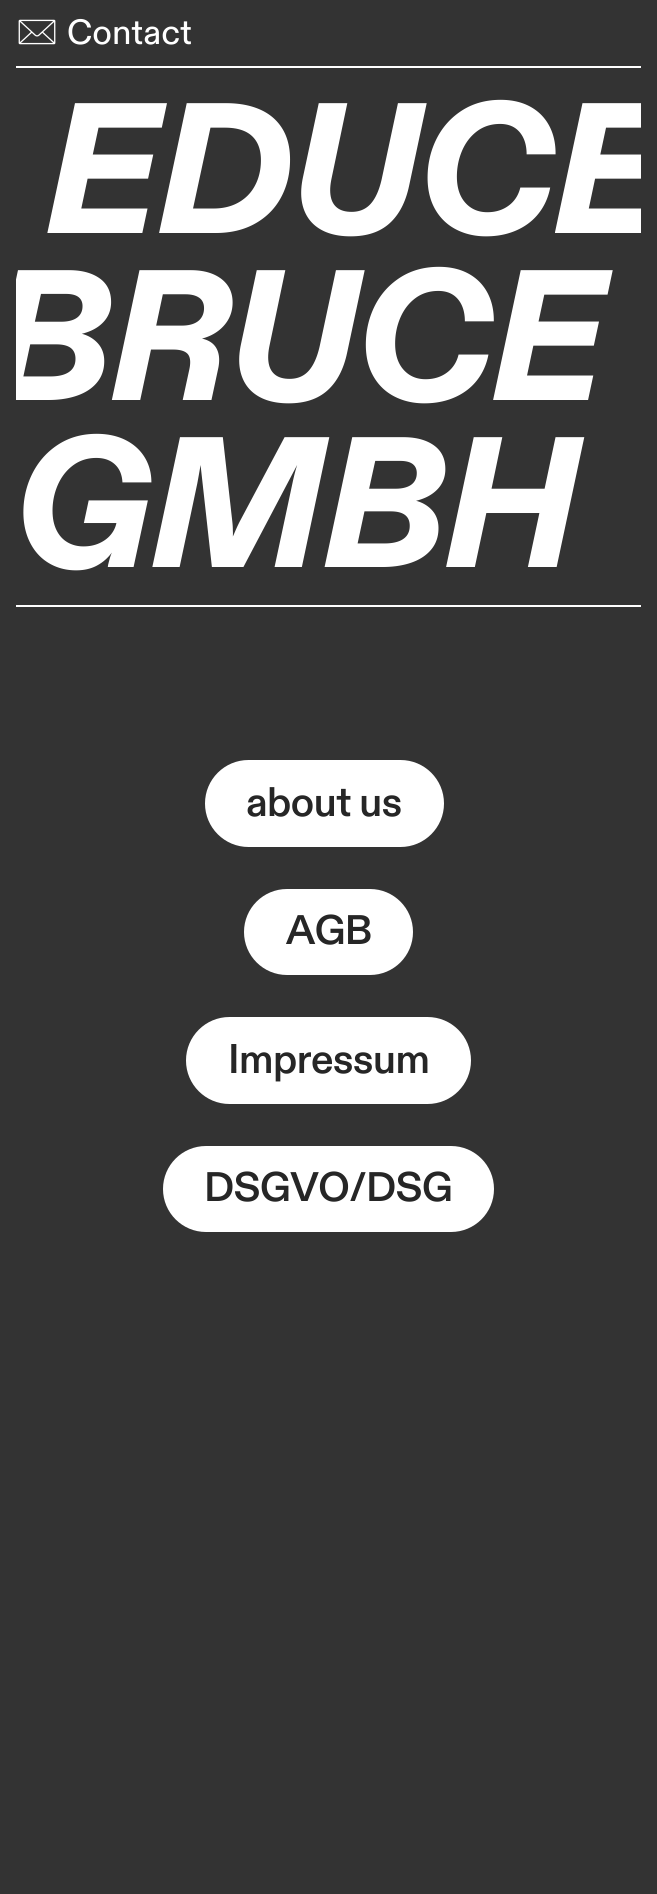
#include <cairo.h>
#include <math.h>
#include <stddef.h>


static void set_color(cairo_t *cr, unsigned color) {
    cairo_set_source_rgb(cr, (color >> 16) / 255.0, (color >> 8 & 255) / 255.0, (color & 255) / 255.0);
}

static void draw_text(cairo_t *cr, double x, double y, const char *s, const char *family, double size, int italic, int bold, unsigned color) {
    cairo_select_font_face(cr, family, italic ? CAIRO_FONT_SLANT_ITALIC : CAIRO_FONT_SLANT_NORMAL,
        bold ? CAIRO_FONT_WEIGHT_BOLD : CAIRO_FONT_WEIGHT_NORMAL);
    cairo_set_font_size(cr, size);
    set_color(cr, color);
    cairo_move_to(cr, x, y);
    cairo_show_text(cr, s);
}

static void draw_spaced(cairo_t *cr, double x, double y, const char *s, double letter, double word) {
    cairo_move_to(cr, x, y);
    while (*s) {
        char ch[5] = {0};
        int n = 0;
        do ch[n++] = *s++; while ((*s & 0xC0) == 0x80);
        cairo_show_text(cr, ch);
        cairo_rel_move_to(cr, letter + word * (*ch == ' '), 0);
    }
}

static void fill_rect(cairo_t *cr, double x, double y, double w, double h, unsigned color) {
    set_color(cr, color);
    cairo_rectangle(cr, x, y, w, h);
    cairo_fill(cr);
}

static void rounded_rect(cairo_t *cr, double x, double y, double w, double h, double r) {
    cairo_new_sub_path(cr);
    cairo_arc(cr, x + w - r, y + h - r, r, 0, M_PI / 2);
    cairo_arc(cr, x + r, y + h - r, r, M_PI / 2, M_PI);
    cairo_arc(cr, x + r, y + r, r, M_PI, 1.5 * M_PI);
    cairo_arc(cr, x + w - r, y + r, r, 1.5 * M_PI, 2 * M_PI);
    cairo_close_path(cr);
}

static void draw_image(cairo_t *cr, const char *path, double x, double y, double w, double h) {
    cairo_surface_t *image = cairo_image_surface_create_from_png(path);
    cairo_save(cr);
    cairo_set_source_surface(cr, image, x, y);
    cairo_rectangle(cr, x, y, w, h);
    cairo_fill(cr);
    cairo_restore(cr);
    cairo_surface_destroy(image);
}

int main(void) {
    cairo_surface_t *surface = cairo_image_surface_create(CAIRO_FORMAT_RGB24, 657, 1894);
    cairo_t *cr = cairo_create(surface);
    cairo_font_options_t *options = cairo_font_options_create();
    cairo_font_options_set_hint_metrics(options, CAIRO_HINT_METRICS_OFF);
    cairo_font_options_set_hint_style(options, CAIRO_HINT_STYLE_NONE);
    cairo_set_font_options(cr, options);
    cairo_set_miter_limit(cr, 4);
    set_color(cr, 0x333333);
    cairo_paint(cr);
    draw_image(cr, "assets/img1.png", 18, 19, 38, 26);
    draw_text(cr, 67, 44, "Contact", "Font", 35, 0, 0, 0xFFFFFF);
    fill_rect(cr, 16, 66, 625, 2, 0xFFFFFF);
    cairo_save(cr);
    cairo_rectangle(cr, 16, 53, 625, 583);
    cairo_clip(cr);
    cairo_select_font_face(cr, "Font ExtraBold", CAIRO_FONT_SLANT_ITALIC, CAIRO_FONT_WEIGHT_NORMAL);
    cairo_set_font_size(cr, 185.5);
    draw_spaced(cr, 44, 233, "EDUCE", -3.75, 0);
    draw_spaced(cr, -13, 400, "BRUCE", -3.75, 0);
    cairo_restore(cr);
    cairo_select_font_face(cr, "Font ExtraBold", CAIRO_FONT_SLANT_ITALIC, CAIRO_FONT_WEIGHT_NORMAL);
    cairo_set_font_size(cr, 185.5);
    draw_spaced(cr, 13, 567, "GMBH", -3.75, 0);
    fill_rect(cr, 16, 605, 625, 2, 0xFFFFFF);
    rounded_rect(cr, 205, 760, 239, 87, 43.5);
    cairo_fill(cr);
    cairo_select_font_face(cr, "Font SemiBold", CAIRO_FONT_SLANT_NORMAL, CAIRO_FONT_WEIGHT_NORMAL);
    cairo_set_font_size(cr, 41.25);
    set_color(cr, 0x262626);
    draw_spaced(cr, 246, 816, "about us", -0.5, 0);
    set_color(cr, 0xFFFFFF);
    rounded_rect(cr, 244, 889, 169, 86, 43);
    cairo_fill(cr);
    set_color(cr, 0x262626);
    draw_spaced(cr, 286, 944, "AGB", -0.5, 0);
    set_color(cr, 0xFFFFFF);
    rounded_rect(cr, 186, 1017, 285, 87, 43.5);
    cairo_fill(cr);
    set_color(cr, 0x262626);
    draw_spaced(cr, 228, 1073, "Impressum", -0.5, 0);
    set_color(cr, 0xFFFFFF);
    rounded_rect(cr, 163, 1146, 331, 86, 43);
    cairo_fill(cr);
    set_color(cr, 0x262626);
    draw_spaced(cr, 204, 1201, "DSGVO/DSG", -0.5, 0);
    cairo_surface_write_to_png(surface, "output.png");
    cairo_font_options_destroy(options);
    cairo_destroy(cr);
    cairo_surface_destroy(surface);
    return 0;
}
